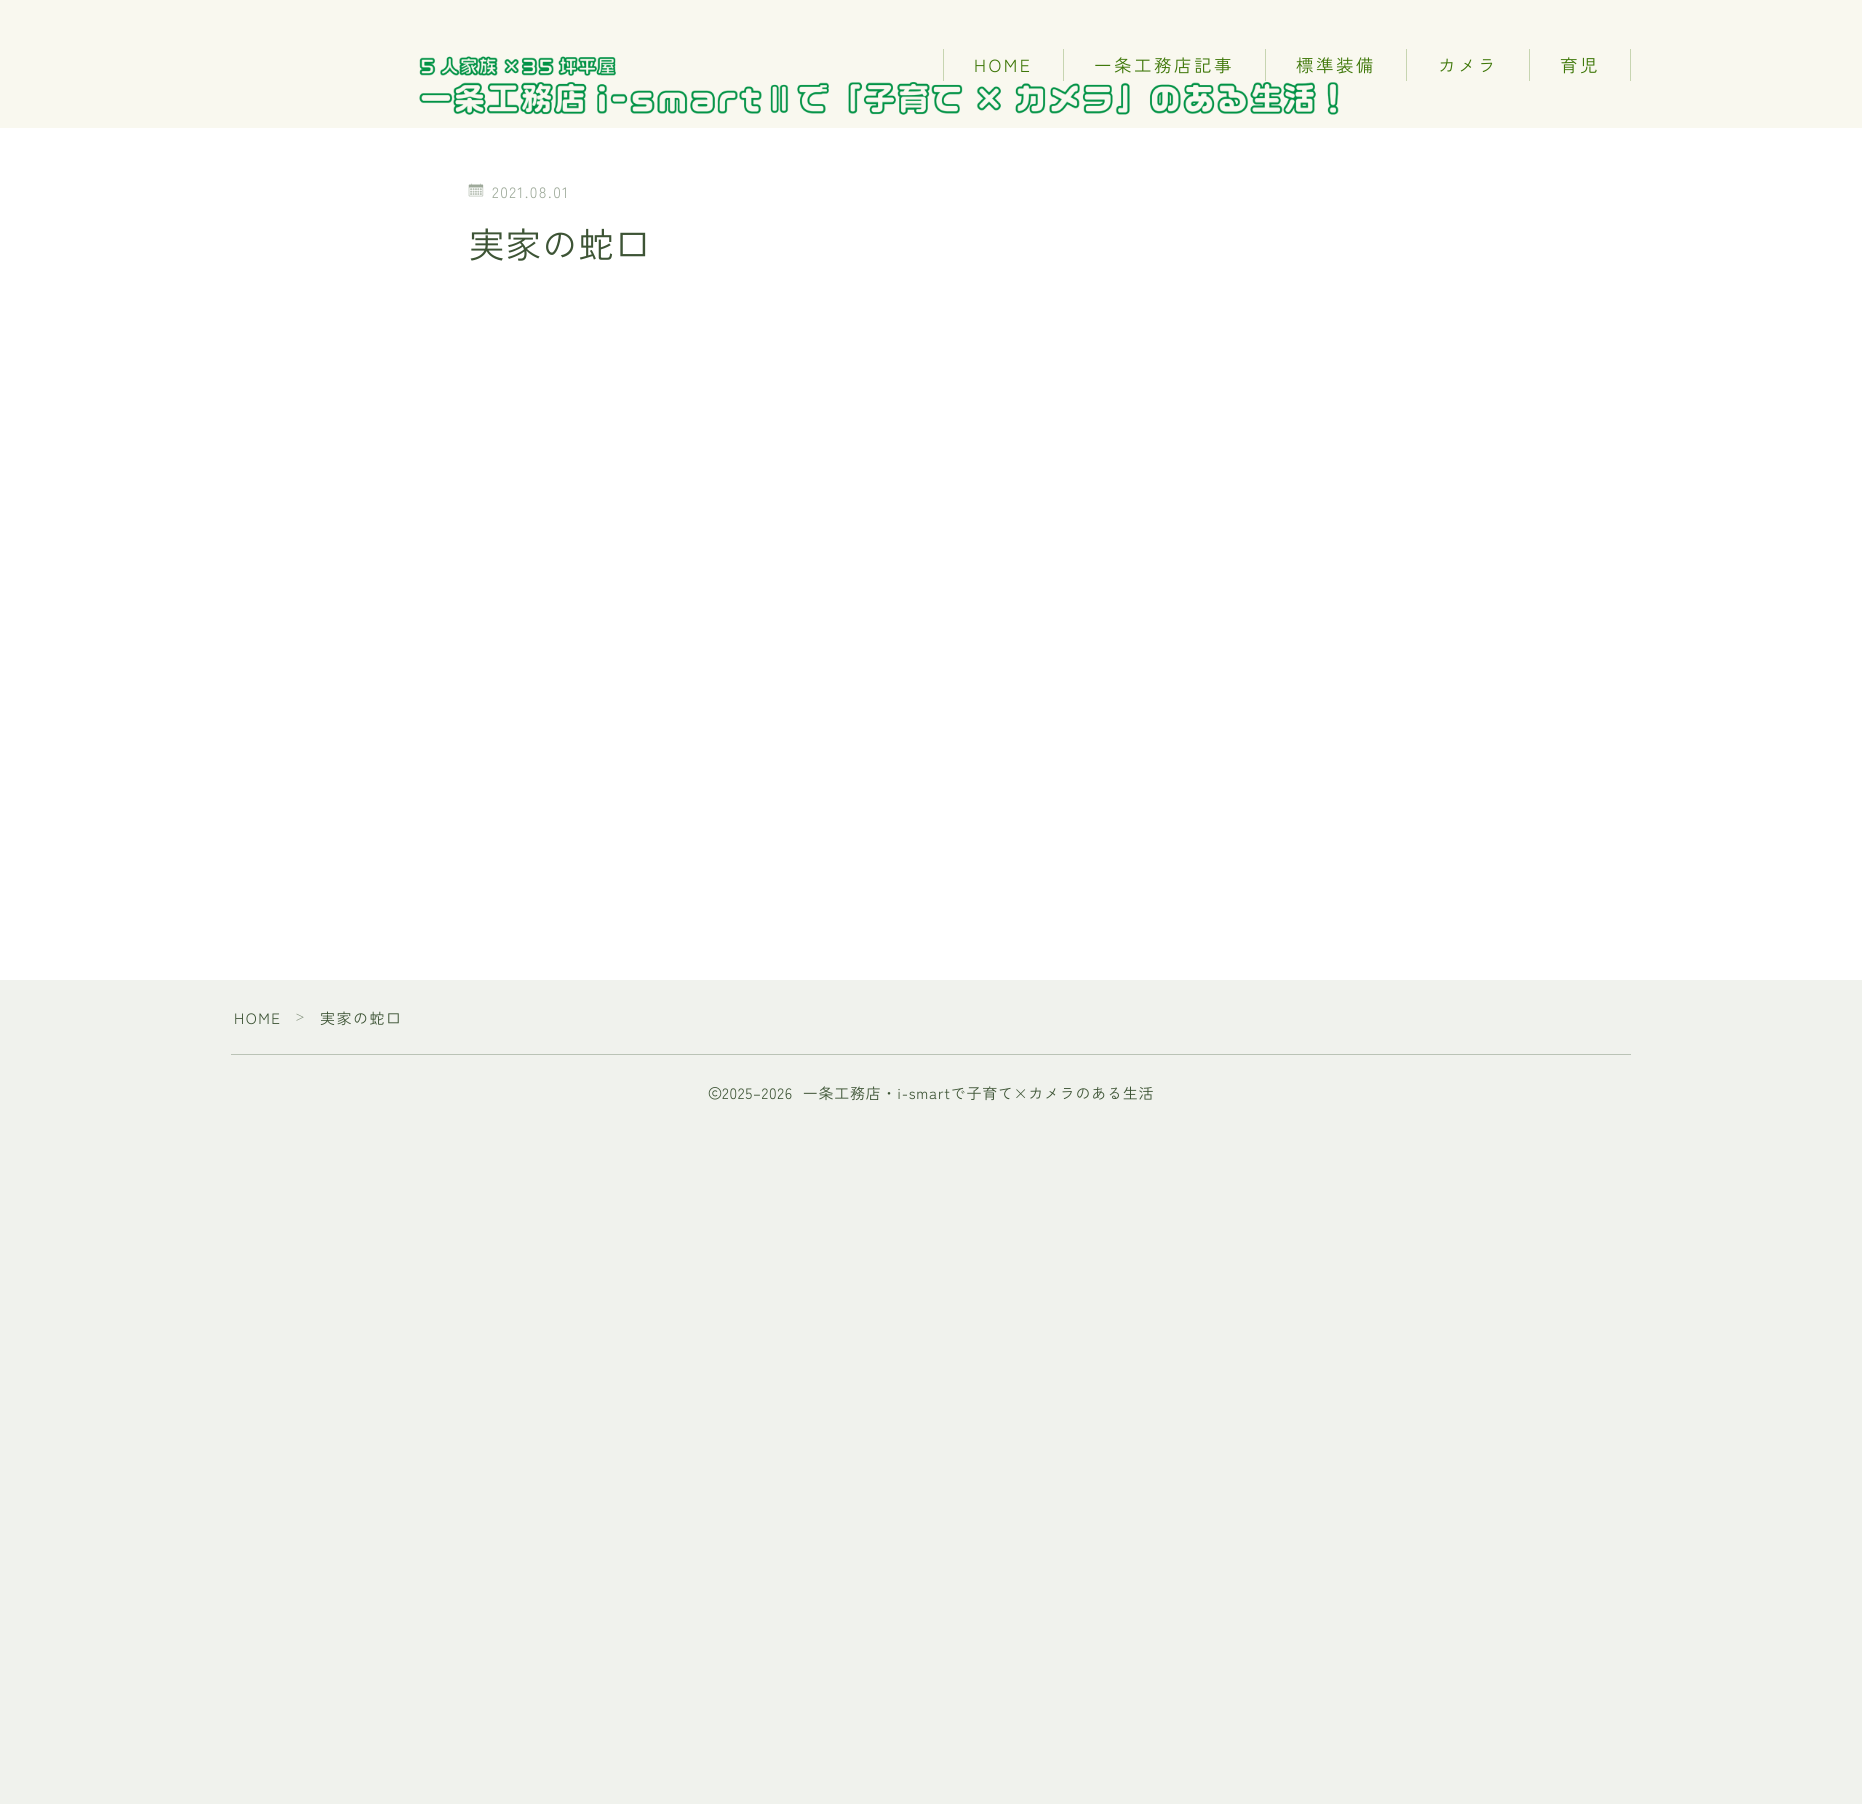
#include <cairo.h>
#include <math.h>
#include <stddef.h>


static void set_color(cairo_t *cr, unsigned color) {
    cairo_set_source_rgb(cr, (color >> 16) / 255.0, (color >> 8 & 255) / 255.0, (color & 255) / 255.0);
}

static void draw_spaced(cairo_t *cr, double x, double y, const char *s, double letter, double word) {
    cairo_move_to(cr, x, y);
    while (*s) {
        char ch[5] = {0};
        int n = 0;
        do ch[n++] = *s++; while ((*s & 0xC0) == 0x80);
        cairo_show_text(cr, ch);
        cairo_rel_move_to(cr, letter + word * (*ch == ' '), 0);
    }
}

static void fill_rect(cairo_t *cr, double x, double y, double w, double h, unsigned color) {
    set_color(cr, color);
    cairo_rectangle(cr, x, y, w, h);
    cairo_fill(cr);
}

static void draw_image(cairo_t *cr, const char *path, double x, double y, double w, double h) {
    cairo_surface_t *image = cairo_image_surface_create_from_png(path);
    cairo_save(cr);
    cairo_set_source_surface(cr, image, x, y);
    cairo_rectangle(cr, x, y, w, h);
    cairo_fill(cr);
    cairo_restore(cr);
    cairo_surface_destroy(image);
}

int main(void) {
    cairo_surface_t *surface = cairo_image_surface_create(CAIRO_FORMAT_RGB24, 1862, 1804);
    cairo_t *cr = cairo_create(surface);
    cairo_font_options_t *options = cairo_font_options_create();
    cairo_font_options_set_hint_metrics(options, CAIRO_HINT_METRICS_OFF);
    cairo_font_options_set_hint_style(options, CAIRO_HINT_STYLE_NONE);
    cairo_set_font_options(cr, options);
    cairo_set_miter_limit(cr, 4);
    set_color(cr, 0xF0F2ED);
    cairo_paint(cr);
    fill_rect(cr, 0, 0, 1862, 128, 0xF9F8EF);
    draw_image(cr, "assets/img1.png", 419, 56, 920, 59);
    fill_rect(cr, 1063, 49, 1, 32, 0xC7D5B1);
    fill_rect(cr, 943, 49, 1, 32, 0xC7D5B1);
    cairo_select_font_face(cr, "Zen Kaku Gothic New", CAIRO_FONT_SLANT_NORMAL, CAIRO_FONT_WEIGHT_NORMAL);
    cairo_set_font_size(cr, 17.5);
    set_color(cr, 0x3E7708);
    draw_spaced(cr, 974, 72, "HOME", 2.5, 0);
    fill_rect(cr, 1265, 49, 1, 32, 0xC7D5B1);
    set_color(cr, 0x3E7708);
    draw_spaced(cr, 1094, 72, "一条工務店記事", 2.5, 0);
    fill_rect(cr, 1406, 49, 1, 32, 0xC7D5B1);
    set_color(cr, 0x3E7708);
    draw_spaced(cr, 1296, 72, "標準装備", 2.5, 0);
    fill_rect(cr, 1529, 49, 1, 32, 0xC7D5B1);
    set_color(cr, 0x3E7708);
    draw_spaced(cr, 1438, 72, "カメラ", 2.5, 0);
    fill_rect(cr, 1630, 49, 1, 32, 0xC7D5B1);
    set_color(cr, 0x3E7708);
    draw_spaced(cr, 1560, 72, "育児", 2.5, 0);
    fill_rect(cr, 0, 128, 1862, 852, 0xFFFFFF);
    draw_image(cr, "assets/img2.png", 468, 183, 16, 14);
    cairo_set_font_size(cr, 15);
    set_color(cr, 0x9EAA9A);
    draw_spaced(cr, 492, 198, "2021.08.01", 1.5, 0);
    cairo_set_font_size(cr, 35.5);
    set_color(cr, 0x3D5435);
    draw_spaced(cr, 469, 258, "実家の蛇口", 1, 0);
    cairo_set_font_size(cr, 15);
    draw_spaced(cr, 234, 1024, "HOME", 1.5, 0);
    cairo_set_font_size(cr, 10);
    set_color(cr, 0x73836C);
    draw_spaced(cr, 295, 1021, "＞", 1, 0);
    cairo_set_font_size(cr, 15);
    set_color(cr, 0x3D5435);
    draw_spaced(cr, 320, 1024, "実家の蛇口", 1.5, 0);
    fill_rect(cr, 231, 1054, 1400, 1, 0xBAC3B6);
    draw_image(cr, "assets/img3.png", 708, 1087, 14, 13);
    set_color(cr, 0x3D5435);
    draw_spaced(cr, 722, 1099, "2025–2026  一条工務店・i-smartで子育て×カメラのある生活", 0.75, 0);
    cairo_surface_write_to_png(surface, "output.png");
    cairo_font_options_destroy(options);
    cairo_destroy(cr);
    cairo_surface_destroy(surface);
    return 0;
}
